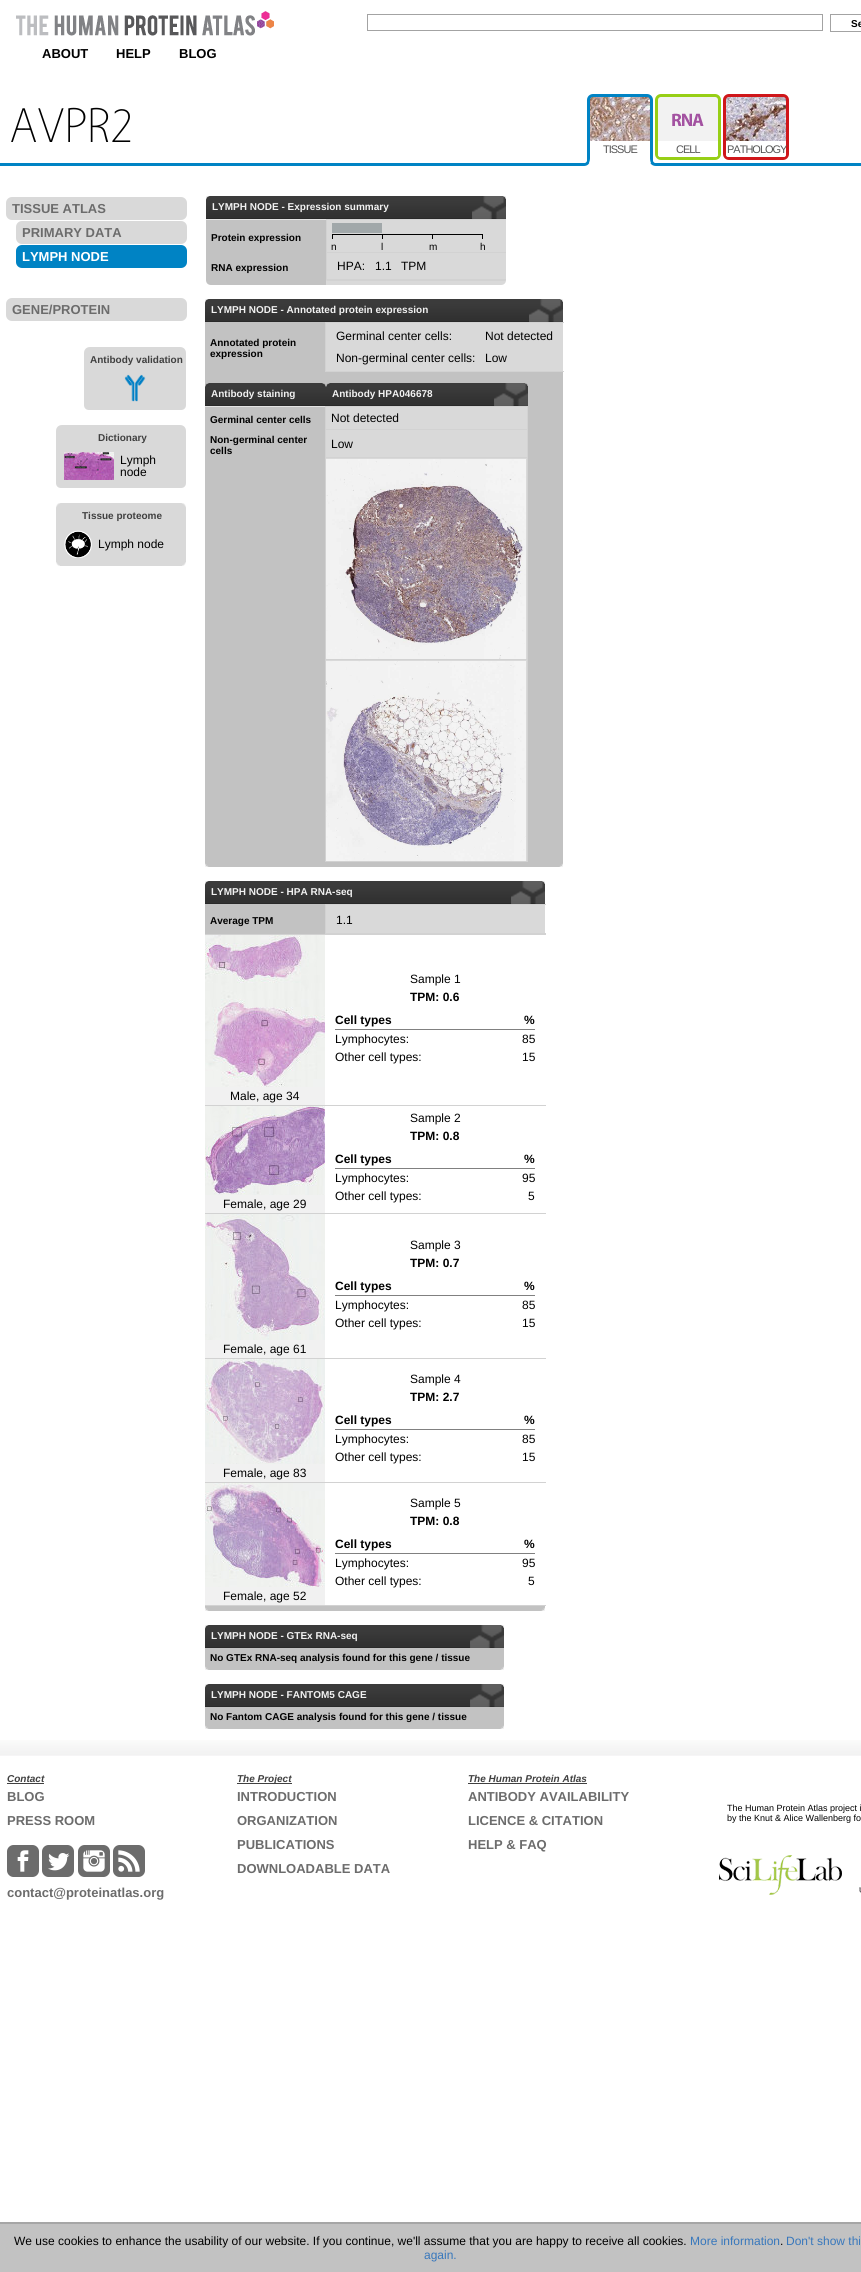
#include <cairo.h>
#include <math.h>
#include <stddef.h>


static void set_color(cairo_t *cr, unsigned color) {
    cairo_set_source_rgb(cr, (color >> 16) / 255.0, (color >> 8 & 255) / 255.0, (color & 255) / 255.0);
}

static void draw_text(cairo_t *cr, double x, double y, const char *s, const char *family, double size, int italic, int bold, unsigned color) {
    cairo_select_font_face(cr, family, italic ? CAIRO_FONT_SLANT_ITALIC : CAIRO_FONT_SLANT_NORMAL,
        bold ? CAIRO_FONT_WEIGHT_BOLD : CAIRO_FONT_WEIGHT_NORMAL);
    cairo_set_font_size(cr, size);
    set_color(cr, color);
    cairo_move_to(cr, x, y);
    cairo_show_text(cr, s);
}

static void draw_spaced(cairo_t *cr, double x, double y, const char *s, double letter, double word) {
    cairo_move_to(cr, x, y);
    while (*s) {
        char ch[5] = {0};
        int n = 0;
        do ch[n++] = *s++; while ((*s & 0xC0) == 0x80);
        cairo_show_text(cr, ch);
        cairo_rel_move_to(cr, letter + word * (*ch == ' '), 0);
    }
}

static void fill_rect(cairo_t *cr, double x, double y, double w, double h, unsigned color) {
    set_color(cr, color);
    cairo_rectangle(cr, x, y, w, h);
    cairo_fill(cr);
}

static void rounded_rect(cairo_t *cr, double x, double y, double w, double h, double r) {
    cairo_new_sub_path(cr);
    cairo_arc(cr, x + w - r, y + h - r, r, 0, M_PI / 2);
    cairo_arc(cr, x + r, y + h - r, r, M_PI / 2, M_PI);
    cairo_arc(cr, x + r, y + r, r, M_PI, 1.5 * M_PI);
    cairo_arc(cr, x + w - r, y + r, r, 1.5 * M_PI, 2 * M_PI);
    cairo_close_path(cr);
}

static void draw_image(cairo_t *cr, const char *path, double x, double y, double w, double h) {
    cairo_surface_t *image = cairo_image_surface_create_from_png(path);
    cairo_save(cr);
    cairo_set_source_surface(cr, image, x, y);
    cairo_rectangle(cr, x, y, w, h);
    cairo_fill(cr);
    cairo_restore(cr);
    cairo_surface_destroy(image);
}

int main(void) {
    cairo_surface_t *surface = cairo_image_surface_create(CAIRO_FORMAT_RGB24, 861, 2272);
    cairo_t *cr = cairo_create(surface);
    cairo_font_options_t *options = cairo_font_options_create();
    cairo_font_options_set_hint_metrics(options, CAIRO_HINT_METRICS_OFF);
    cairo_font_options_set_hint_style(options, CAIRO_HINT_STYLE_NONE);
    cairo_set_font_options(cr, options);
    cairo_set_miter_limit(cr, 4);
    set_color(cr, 0xFFFFFF);
    cairo_paint(cr);
    draw_image(cr, "assets/img1.png", 16, 15, 239, 21);
    draw_image(cr, "assets/img2.png", 257, 11, 17, 18);
    cairo_rectangle(cr, 367.5, 14.5, 455, 16);
    set_color(cr, 0xA3A3A3);
    cairo_set_line_width(cr, 1);
    cairo_stroke(cr);
    cairo_rectangle(cr, 830.5, 14.5, 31, 17);
    cairo_stroke(cr);
    draw_text(cr, 851, 27, "Se", "Liberation Sans", 10, 0, 1, 0x000000);
    draw_text(cr, 42, 58, "ABOUT", "Liberation Sans", 13, 0, 1, 0x000000);
    draw_text(cr, 116, 58, "HELP", "Liberation Sans", 13, 0, 1, 0x000000);
    draw_text(cr, 179, 58, "BLOG", "Liberation Sans", 13, 0, 1, 0x000000);
    draw_text(cr, 10, 142, "AVPR2", "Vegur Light", 49, 0, 0, 0x000000);
    draw_image(cr, "assets/img3.png", 590, 97, 60, 44);
    rounded_rect(cr, 588.5, 95.5, 63, 63, 4.5);
    set_color(cr, 0x0083C4);
    cairo_set_line_width(cr, 3);
    cairo_stroke(cr);
    fill_rect(cr, 0, 163, 861, 3, 0x0083C4);
    fill_rect(cr, 590, 154, 60, 12, 0xFFFFFF);
    cairo_select_font_face(cr, "Liberation Sans", CAIRO_FONT_SLANT_NORMAL, CAIRO_FONT_WEIGHT_NORMAL);
    cairo_set_font_size(cr, 11);
    set_color(cr, 0x555555);
    draw_spaced(cr, 603, 153, "TISSUE", -1, 0);
    set_color(cr, 0x0083C4);
    cairo_new_path(cr);
    cairo_move_to(cr, 584, 163.5);
    cairo_line_to(cr, 584, 166);
    cairo_curve_to(cr, 590, 166, 590, 160.5, 590, 156);
    cairo_line_to(cr, 588, 156);
    cairo_curve_to(cr, 588, 159, 587.5, 162.5, 584, 163.5);
    cairo_close_path(cr);
    cairo_fill(cr);
    fill_rect(cr, 587, 154, 1, 7, 0x0083C4);
    set_color(cr, 0xFFFFFF);
    cairo_set_fill_rule(cr, CAIRO_FILL_RULE_EVEN_ODD);
    cairo_new_path(cr);
    cairo_move_to(cr, 584, 160);
    cairo_line_to(cr, 593, 160);
    cairo_curve_to(cr, 593, 165.5, 589.5, 170, 584, 170);
    cairo_close_path(cr);
    cairo_move_to(cr, 584, 160);
    cairo_line_to(cr, 590, 160);
    cairo_curve_to(cr, 590, 163.5, 587.5, 166, 584, 166);
    cairo_close_path(cr);
    cairo_fill(cr);
    draw_image(cr, "assets/img4.png", 658, 97, 60, 60);
    rounded_rect(cr, 656.5, 95.5, 63, 63, 4.5);
    set_color(cr, 0x97CF16);
    cairo_stroke(cr);
    set_color(cr, 0x0083C4);
    cairo_set_fill_rule(cr, CAIRO_FILL_RULE_WINDING);
    cairo_new_path(cr);
    cairo_move_to(cr, 650, 156);
    cairo_curve_to(cr, 650, 160.5, 650, 166, 656, 166);
    cairo_line_to(cr, 656, 163.5);
    cairo_curve_to(cr, 652.5, 162.5, 652, 159, 652, 156);
    cairo_close_path(cr);
    cairo_fill(cr);
    fill_rect(cr, 652, 154, 1, 7, 0x0083C4);
    set_color(cr, 0xFFFFFF);
    cairo_set_fill_rule(cr, CAIRO_FILL_RULE_EVEN_ODD);
    cairo_new_path(cr);
    cairo_move_to(cr, 647, 160);
    cairo_line_to(cr, 656, 160);
    cairo_line_to(cr, 656, 170);
    cairo_curve_to(cr, 651, 170, 647, 166, 647, 161);
    cairo_close_path(cr);
    cairo_move_to(cr, 650, 160);
    cairo_line_to(cr, 656, 160);
    cairo_line_to(cr, 656, 166);
    cairo_curve_to(cr, 652.5, 166, 650, 164, 650, 161);
    cairo_close_path(cr);
    cairo_fill(cr);
    cairo_new_path(cr);
    cairo_move_to(cr, 658, 141);
    cairo_line_to(cr, 718, 141);
    cairo_line_to(cr, 718, 155);
    cairo_curve_to(cr, 718, 156, 717, 157, 716, 157);
    cairo_line_to(cr, 660, 157);
    cairo_curve_to(cr, 659, 157, 658, 156, 658, 155);
    cairo_close_path(cr);
    cairo_fill(cr);
    set_color(cr, 0x555555);
    draw_spaced(cr, 676, 153, "CELL", -1, 0);
    draw_image(cr, "assets/img5.png", 726, 97, 60, 60);
    rounded_rect(cr, 724.5, 95.5, 63, 63, 4.5);
    set_color(cr, 0xCF161A);
    cairo_stroke(cr);
    set_color(cr, 0xFFFFFF);
    cairo_new_path(cr);
    cairo_move_to(cr, 726, 141);
    cairo_line_to(cr, 786, 141);
    cairo_line_to(cr, 786, 155);
    cairo_curve_to(cr, 786, 156, 785, 157, 784, 157);
    cairo_line_to(cr, 728, 157);
    cairo_curve_to(cr, 727, 157, 726, 156, 726, 155);
    cairo_close_path(cr);
    cairo_fill(cr);
    set_color(cr, 0x555555);
    draw_spaced(cr, 727, 153, "PATHOLOGY", -1, 0);
    set_color(cr, 0xD9D9D9);
    rounded_rect(cr, 6, 197, 181, 23, 6);
    cairo_fill(cr);
    draw_text(cr, 12, 213, "TISSUE ATLAS", "Liberation Sans", 13, 0, 1, 0x6C6C6C);
    set_color(cr, 0xD9D9D9);
    rounded_rect(cr, 16, 221, 171, 23, 6);
    cairo_fill(cr);
    draw_text(cr, 22, 237, "PRIMARY DATA", "Liberation Sans", 13, 0, 1, 0x6C6C6C);
    set_color(cr, 0x0083C4);
    rounded_rect(cr, 16, 245, 171, 23, 6);
    cairo_fill(cr);
    draw_text(cr, 22, 261, "LYMPH NODE", "Liberation Sans", 13, 0, 1, 0xFFFFFF);
    set_color(cr, 0xD9D9D9);
    rounded_rect(cr, 6, 298, 181, 23, 6);
    cairo_fill(cr);
    draw_text(cr, 12, 314, "GENE/PROTEIN", "Liberation Sans", 13, 0, 1, 0x6C6C6C);
    set_color(cr, 0xD9D9D9);
    cairo_new_path(cr);
    cairo_move_to(cr, 90, 347);
    cairo_line_to(cr, 180, 347);
    cairo_curve_to(cr, 183.5, 347, 186, 349.5, 186, 353);
    cairo_line_to(cr, 186, 371);
    cairo_line_to(cr, 84, 371);
    cairo_line_to(cr, 84, 353);
    cairo_curve_to(cr, 84, 349.5, 86.5, 347, 90, 347);
    cairo_close_path(cr);
    cairo_fill(cr);
    draw_text(cr, 90, 363, "Antibody validation", "Liberation Sans", 10, 0, 1, 0x404040);
    fill_rect(cr, 84, 371, 102, 34, 0xD9D9D9);
    draw_image(cr, "assets/img6.png", 124, 374, 22, 28);
    cairo_new_path(cr);
    cairo_move_to(cr, 84, 405);
    cairo_line_to(cr, 186, 405);
    cairo_curve_to(cr, 186, 408, 184, 410, 181, 410);
    cairo_line_to(cr, 89, 410);
    cairo_curve_to(cr, 86, 410, 84, 408, 84, 405);
    cairo_close_path(cr);
    cairo_fill(cr);
    cairo_new_path(cr);
    cairo_move_to(cr, 62, 425);
    cairo_line_to(cr, 180, 425);
    cairo_curve_to(cr, 183.5, 425, 186, 427.5, 186, 431);
    cairo_line_to(cr, 186, 449);
    cairo_line_to(cr, 56, 449);
    cairo_line_to(cr, 56, 431);
    cairo_curve_to(cr, 56, 427.5, 58.5, 425, 62, 425);
    cairo_close_path(cr);
    cairo_fill(cr);
    draw_text(cr, 98, 441, "Dictionary", "Liberation Sans", 10, 0, 1, 0x404040);
    fill_rect(cr, 56, 449, 130, 34, 0xD9D9D9);
    draw_image(cr, "assets/img7.png", 64, 452, 50, 28);
    draw_text(cr, 120, 464, "Lymph", "Liberation Sans", 12, 0, 0, 0x000000);
    draw_text(cr, 120, 476, "node", "Liberation Sans", 12, 0, 0, 0x000000);
    set_color(cr, 0xD9D9D9);
    cairo_new_path(cr);
    cairo_move_to(cr, 56, 483);
    cairo_line_to(cr, 186, 483);
    cairo_curve_to(cr, 186, 486, 184, 488, 181, 488);
    cairo_line_to(cr, 61, 488);
    cairo_curve_to(cr, 58, 488, 56, 486, 56, 483);
    cairo_close_path(cr);
    cairo_fill(cr);
    fill_rect(cr, 56, 503, 130, 24, 0xD9D9D9);
    draw_image(cr, "assets/img8.png", 56, 503, 5, 5);
    draw_image(cr, "assets/img9.png", 181, 503, 5, 5);
    draw_text(cr, 82, 519, "Tissue proteome", "Liberation Sans", 10, 0, 1, 0x404040);
    fill_rect(cr, 56, 527, 130, 39, 0xD9D9D9);
    draw_image(cr, "assets/img10.png", 64, 530, 28, 28);
    draw_text(cr, 98, 548, "Lymph node", "Liberation Sans", 12, 0, 0, 0x000000);
    draw_image(cr, "assets/img11.png", 56, 562, 4, 4);
    draw_image(cr, "assets/img12.png", 182, 562, 4, 4);
    fill_rect(cr, 206, 219, 120, 1, 0xE3E3E3);
    draw_image(cr, "assets/img13.png", 206, 196, 266, 23);
    draw_image(cr, "assets/img14.png", 206, 196, 4, 4);
    draw_text(cr, 212, 210, "LYMPH NODE - Expression summary", "Liberation Sans", 10, 0, 1, 0xF2F2F2);
    draw_image(cr, "assets/img15.png", 472, 196, 34, 23);
    fill_rect(cr, 206, 220, 120, 60, 0xC2C2C2);
    draw_text(cr, 211, 241, "Protein expression", "Liberation Sans", 10, 0, 1, 0x000000);
    fill_rect(cr, 327, 220, 179, 32, 0xD9D9D9);
    fill_rect(cr, 326, 219, 180, 1, 0xD2D2D2);
    fill_rect(cr, 326, 252, 180, 1, 0xD2D2D2);
    fill_rect(cr, 326, 279, 180, 1, 0xD2D2D2);
    fill_rect(cr, 326, 252, 1, 28, 0xD2D2D2);
    fill_rect(cr, 326, 219, 1, 34, 0xD2D2D2);
    fill_rect(cr, 332, 234, 150, 1, 0x000000);
    fill_rect(cr, 332, 223, 50, 10, 0xA1A8AA);
    fill_rect(cr, 332, 234, 1, 5, 0x000000);
    draw_text(cr, 331, 250, "n", "Liberation Sans", 10, 0, 0, 0x000000);
    fill_rect(cr, 382, 234, 1, 5, 0x000000);
    draw_text(cr, 381, 250, "l", "Liberation Sans", 10, 0, 0, 0x000000);
    fill_rect(cr, 432, 234, 1, 5, 0x000000);
    draw_text(cr, 429, 250, "m", "Liberation Sans", 10, 0, 0, 0x000000);
    fill_rect(cr, 482, 234, 1, 5, 0x000000);
    draw_text(cr, 480, 250, "h", "Liberation Sans", 10, 0, 0, 0x000000);
    draw_text(cr, 211, 271, "RNA expression", "Liberation Sans", 10, 0, 1, 0x000000);
    fill_rect(cr, 327, 253, 179, 26, 0xD9D9D9);
    draw_text(cr, 337, 270, "HPA:", "Liberation Sans", 12, 0, 0, 0x000000);
    draw_text(cr, 375, 270, "1.1", "Liberation Sans", 12, 0, 0, 0x000000);
    draw_text(cr, 401, 270, "TPM", "Liberation Sans", 12, 0, 0, 0x000000);
    set_color(cr, 0xC2C2C2);
    cairo_new_path(cr);
    cairo_move_to(cr, 206, 280);
    cairo_line_to(cr, 326, 280);
    cairo_line_to(cr, 326, 285);
    cairo_line_to(cr, 211, 285);
    cairo_curve_to(cr, 208, 285, 206, 283, 206, 280);
    cairo_close_path(cr);
    cairo_fill(cr);
    set_color(cr, 0xD9D9D9);
    cairo_new_path(cr);
    cairo_move_to(cr, 326, 280);
    cairo_line_to(cr, 506, 280);
    cairo_curve_to(cr, 506, 283, 504, 285, 501, 285);
    cairo_line_to(cr, 326, 285);
    cairo_close_path(cr);
    cairo_fill(cr);
    set_color(cr, 0xD2D2D2);
    cairo_new_path(cr);
    cairo_move_to(cr, 326, 280);
    cairo_line_to(cr, 327, 281);
    cairo_line_to(cr, 505, 281);
    cairo_line_to(cr, 506, 280);
    cairo_close_path(cr);
    cairo_move_to(cr, 505, 281);
    cairo_line_to(cr, 505, 280);
    cairo_close_path(cr);
    cairo_fill(cr);
    draw_image(cr, "assets/img16.png", 205, 299, 324, 23);
    draw_image(cr, "assets/img14.png", 205, 299, 4, 4);
    draw_text(cr, 211, 313, "LYMPH NODE - Annotated protein expression", "Liberation Sans", 10, 0, 1, 0xF2F2F2);
    draw_image(cr, "assets/img15.png", 529, 299, 34, 23);
    fill_rect(cr, 205, 322, 120, 50, 0xC2C2C2);
    draw_text(cr, 210, 346, "Annotated protein", "Liberation Sans", 10, 0, 1, 0x000000);
    draw_text(cr, 210, 357, "expression", "Liberation Sans", 10, 0, 1, 0x000000);
    fill_rect(cr, 326, 323, 237, 48, 0xD9D9D9);
    fill_rect(cr, 325, 322, 239, 1, 0xD2D2D2);
    fill_rect(cr, 325, 371, 239, 1, 0xD2D2D2);
    fill_rect(cr, 325, 322, 1, 50, 0xD2D2D2);
    draw_text(cr, 336, 340, "Germinal center cells:", "Liberation Sans", 12, 0, 0, 0x000000);
    draw_text(cr, 485, 340, "Not detected", "Liberation Sans", 12, 0, 0, 0x000000);
    draw_text(cr, 336, 362, "Non-germinal center cells:", "Liberation Sans", 12, 0, 0, 0x000000);
    draw_text(cr, 485, 362, "Low", "Liberation Sans", 12, 0, 0, 0x000000);
    fill_rect(cr, 205, 372, 358, 11, 0xC2C2C2);
    fill_rect(cr, 205, 406, 120, 1, 0xE3E3E3);
    draw_image(cr, "assets/img17.png", 205, 383, 121, 23);
    draw_image(cr, "assets/img18.png", 205, 383, 4, 4);
    draw_image(cr, "assets/img19.png", 322, 383, 4, 4);
    draw_text(cr, 211, 397, "Antibody staining", "Liberation Sans", 10, 0, 1, 0xF2F2F2);
    draw_image(cr, "assets/img20.png", 326, 383, 168, 23);
    draw_image(cr, "assets/img18.png", 326, 383, 4, 4);
    draw_text(cr, 332, 397, "Antibody HPA046678", "Liberation Sans", 10, 0, 1, 0xF2F2F2);
    draw_image(cr, "assets/img21.png", 494, 383, 34, 23);
    fill_rect(cr, 528, 383, 35, 479, 0xC2C2C2);
    fill_rect(cr, 205, 407, 120, 455, 0xC2C2C2);
    draw_text(cr, 210, 423, "Germinal center cells", "Liberation Sans", 10, 0, 1, 0x000000);
    fill_rect(cr, 326, 407, 201, 22, 0xD9D9D9);
    fill_rect(cr, 527, 659, 1, 203, 0xD2D2D2);
    fill_rect(cr, 325, 659, 203, 1, 0xD2D2D2);
    fill_rect(cr, 527, 457, 1, 203, 0xD2D2D2);
    fill_rect(cr, 325, 457, 203, 1, 0xD2D2D2);
    fill_rect(cr, 527, 429, 1, 29, 0xD2D2D2);
    fill_rect(cr, 325, 429, 203, 1, 0xD2D2D2);
    fill_rect(cr, 527, 406, 1, 24, 0xD2D2D2);
    fill_rect(cr, 325, 406, 203, 1, 0xD2D2D2);
    fill_rect(cr, 325, 861, 203, 1, 0xD2D2D2);
    fill_rect(cr, 325, 659, 1, 203, 0xD2D2D2);
    fill_rect(cr, 325, 457, 1, 203, 0xD2D2D2);
    fill_rect(cr, 325, 429, 1, 29, 0xD2D2D2);
    fill_rect(cr, 325, 406, 1, 24, 0xD2D2D2);
    draw_text(cr, 331, 422, "Not detected", "Liberation Sans", 12, 0, 0, 0x000000);
    draw_text(cr, 210, 443, "Non-germinal center", "Liberation Sans", 10, 0, 1, 0x000000);
    draw_text(cr, 210, 454, "cells", "Liberation Sans", 10, 0, 1, 0x000000);
    fill_rect(cr, 326, 430, 201, 27, 0xD9D9D9);
    draw_text(cr, 331, 448, "Low", "Liberation Sans", 12, 0, 0, 0x000000);
    fill_rect(cr, 326, 458, 201, 201, 0xD9D9D9);
    draw_image(cr, "assets/img22.png", 326, 459, 200, 200);
    fill_rect(cr, 326, 660, 201, 201, 0xD9D9D9);
    draw_image(cr, "assets/img23.png", 326, 661, 200, 200);
    fill_rect(cr, 205, 862, 358, 5, 0xC2C2C2);
    draw_image(cr, "assets/img24.png", 205, 863, 4, 4);
    draw_image(cr, "assets/img25.png", 559, 863, 4, 4);
    draw_image(cr, "assets/img26.png", 205, 881, 306, 23);
    draw_image(cr, "assets/img14.png", 205, 881, 4, 4);
    draw_text(cr, 211, 895, "LYMPH NODE - HPA RNA-seq", "Liberation Sans", 10, 0, 1, 0xF2F2F2);
    draw_image(cr, "assets/img15.png", 511, 881, 34, 23);
    fill_rect(cr, 205, 904, 120, 30, 0xC2C2C2);
    draw_text(cr, 210, 924, "Average TPM", "Liberation Sans", 10, 0, 1, 0x000000);
    fill_rect(cr, 326, 905, 219, 28, 0xD9D9D9);
    fill_rect(cr, 325, 904, 221, 1, 0xD2D2D2);
    fill_rect(cr, 325, 933, 221, 2, 0xD2D2D2);
    fill_rect(cr, 325, 904, 1, 30, 0xD2D2D2);
    draw_text(cr, 336, 924, "1.1", "Liberation Sans", 12, 0, 0, 0x000000);
    draw_text(cr, 410, 983, "Sample 1", "Liberation Sans", 12, 0, 0, 0x000000);
    draw_text(cr, 410, 1001, "TPM: 0.6", "Liberation Sans", 12, 0, 1, 0x000000);
    fill_rect(cr, 335, 1029, 200, 1, 0x808080);
    draw_text(cr, 335, 1024, "Cell types", "Liberation Sans", 12, 0, 1, 0x000000);
    draw_text(cr, 524, 1024, "%", "Liberation Sans", 12, 0, 1, 0x000000);
    draw_text(cr, 335, 1043, "Lymphocytes:", "Liberation Sans", 12, 0, 0, 0x000000);
    draw_text(cr, 522, 1043, "85", "Liberation Sans", 12, 0, 0, 0x000000);
    draw_text(cr, 335, 1061, "Other cell types:", "Liberation Sans", 12, 0, 0, 0x000000);
    draw_text(cr, 522, 1061, "15", "Liberation Sans", 12, 0, 0, 0x000000);
    fill_rect(cr, 205, 1087, 120, 18, 0xF1F1F1);
    fill_rect(cr, 205, 934, 121, 1, 0xD2D2D2);
    draw_image(cr, "assets/img27.png", 205, 935, 120, 152);
    draw_text(cr, 230, 1100, "Male, age 34", "Liberation Sans", 12, 0, 0, 0x000000);
    fill_rect(cr, 205, 1105, 341, 1, 0xD2D2D2);
    draw_text(cr, 410, 1122, "Sample 2", "Liberation Sans", 12, 0, 0, 0x000000);
    draw_text(cr, 410, 1140, "TPM: 0.8", "Liberation Sans", 12, 0, 1, 0x000000);
    fill_rect(cr, 335, 1168, 200, 1, 0x808080);
    draw_text(cr, 335, 1163, "Cell types", "Liberation Sans", 12, 0, 1, 0x000000);
    draw_text(cr, 524, 1163, "%", "Liberation Sans", 12, 0, 1, 0x000000);
    draw_text(cr, 335, 1182, "Lymphocytes:", "Liberation Sans", 12, 0, 0, 0x000000);
    draw_text(cr, 522, 1182, "95", "Liberation Sans", 12, 0, 0, 0x000000);
    draw_text(cr, 335, 1200, "Other cell types:", "Liberation Sans", 12, 0, 0, 0x000000);
    draw_text(cr, 528, 1200, "5", "Liberation Sans", 12, 0, 0, 0x000000);
    fill_rect(cr, 205, 1195, 120, 18, 0xF1F1F1);
    draw_image(cr, "assets/img28.png", 205, 1106, 120, 89);
    draw_text(cr, 223, 1208, "Female, age 29", "Liberation Sans", 12, 0, 0, 0x000000);
    fill_rect(cr, 205, 1213, 341, 1, 0xD2D2D2);
    draw_text(cr, 410, 1249, "Sample 3", "Liberation Sans", 12, 0, 0, 0x000000);
    draw_text(cr, 410, 1267, "TPM: 0.7", "Liberation Sans", 12, 0, 1, 0x000000);
    fill_rect(cr, 335, 1295, 200, 1, 0x808080);
    draw_text(cr, 335, 1290, "Cell types", "Liberation Sans", 12, 0, 1, 0x000000);
    draw_text(cr, 524, 1290, "%", "Liberation Sans", 12, 0, 1, 0x000000);
    draw_text(cr, 335, 1309, "Lymphocytes:", "Liberation Sans", 12, 0, 0, 0x000000);
    draw_text(cr, 522, 1309, "85", "Liberation Sans", 12, 0, 0, 0x000000);
    draw_text(cr, 335, 1327, "Other cell types:", "Liberation Sans", 12, 0, 0, 0x000000);
    draw_text(cr, 522, 1327, "15", "Liberation Sans", 12, 0, 0, 0x000000);
    fill_rect(cr, 205, 1340, 120, 18, 0xF1F1F1);
    draw_image(cr, "assets/img29.png", 205, 1214, 120, 126);
    draw_text(cr, 223, 1353, "Female, age 61", "Liberation Sans", 12, 0, 0, 0x000000);
    fill_rect(cr, 205, 1358, 341, 1, 0xD2D2D2);
    draw_text(cr, 410, 1383, "Sample 4", "Liberation Sans", 12, 0, 0, 0x000000);
    draw_text(cr, 410, 1401, "TPM: 2.7", "Liberation Sans", 12, 0, 1, 0x000000);
    fill_rect(cr, 335, 1429, 200, 1, 0x808080);
    draw_text(cr, 335, 1424, "Cell types", "Liberation Sans", 12, 0, 1, 0x000000);
    draw_text(cr, 524, 1424, "%", "Liberation Sans", 12, 0, 1, 0x000000);
    draw_text(cr, 335, 1443, "Lymphocytes:", "Liberation Sans", 12, 0, 0, 0x000000);
    draw_text(cr, 522, 1443, "85", "Liberation Sans", 12, 0, 0, 0x000000);
    draw_text(cr, 335, 1461, "Other cell types:", "Liberation Sans", 12, 0, 0, 0x000000);
    draw_text(cr, 522, 1461, "15", "Liberation Sans", 12, 0, 0, 0x000000);
    fill_rect(cr, 205, 1464, 120, 18, 0xF1F1F1);
    draw_image(cr, "assets/img30.png", 205, 1359, 120, 105);
    draw_text(cr, 223, 1477, "Female, age 83", "Liberation Sans", 12, 0, 0, 0x000000);
    fill_rect(cr, 205, 1482, 341, 1, 0xD2D2D2);
    fill_rect(cr, 205, 1605, 341, 1, 0xD2D2D2);
    draw_text(cr, 410, 1507, "Sample 5", "Liberation Sans", 12, 0, 0, 0x000000);
    draw_text(cr, 410, 1525, "TPM: 0.8", "Liberation Sans", 12, 0, 1, 0x000000);
    fill_rect(cr, 335, 1553, 200, 1, 0x808080);
    draw_text(cr, 335, 1548, "Cell types", "Liberation Sans", 12, 0, 1, 0x000000);
    draw_text(cr, 524, 1548, "%", "Liberation Sans", 12, 0, 1, 0x000000);
    draw_text(cr, 335, 1567, "Lymphocytes:", "Liberation Sans", 12, 0, 0, 0x000000);
    draw_text(cr, 522, 1567, "95", "Liberation Sans", 12, 0, 0, 0x000000);
    draw_text(cr, 335, 1585, "Other cell types:", "Liberation Sans", 12, 0, 0, 0x000000);
    draw_text(cr, 528, 1585, "5", "Liberation Sans", 12, 0, 0, 0x000000);
    fill_rect(cr, 205, 1587, 120, 18, 0xF1F1F1);
    draw_image(cr, "assets/img31.png", 205, 1483, 120, 104);
    draw_text(cr, 223, 1600, "Female, age 52", "Liberation Sans", 12, 0, 0, 0x000000);
    fill_rect(cr, 205, 1606, 340, 5, 0xC2C2C2);
    draw_image(cr, "assets/img24.png", 205, 1607, 4, 4);
    draw_image(cr, "assets/img25.png", 541, 1607, 4, 4);
    draw_image(cr, "assets/img32.png", 205, 1625, 265, 23);
    draw_image(cr, "assets/img14.png", 205, 1625, 4, 4);
    draw_text(cr, 211, 1639, "LYMPH NODE - GTEx RNA-seq", "Liberation Sans", 10, 0, 1, 0xF2F2F2);
    draw_image(cr, "assets/img15.png", 470, 1625, 34, 23);
    fill_rect(cr, 205, 1648, 299, 22, 0xC2C2C2);
    draw_text(cr, 210, 1661, "No GTEx RNA-seq analysis found for this gene / tissue", "Liberation Sans", 10, 0, 1, 0x000000);
    draw_image(cr, "assets/img24.png", 205, 1666, 4, 4);
    draw_image(cr, "assets/img25.png", 500, 1666, 4, 4);
    draw_image(cr, "assets/img32.png", 205, 1684, 265, 23);
    draw_image(cr, "assets/img14.png", 205, 1684, 4, 4);
    draw_text(cr, 211, 1698, "LYMPH NODE - FANTOM5 CAGE", "Liberation Sans", 10, 0, 1, 0xF2F2F2);
    draw_image(cr, "assets/img15.png", 470, 1684, 34, 23);
    fill_rect(cr, 205, 1707, 299, 22, 0xC2C2C2);
    draw_text(cr, 210, 1720, "No Fantom CAGE analysis found for this gene / tissue", "Liberation Sans", 10, 0, 1, 0x000000);
    draw_image(cr, "assets/img24.png", 205, 1725, 4, 4);
    draw_image(cr, "assets/img25.png", 500, 1725, 4, 4);
    draw_image(cr, "assets/img33.png", 0, 1740, 861, 16);
    draw_text(cr, 7, 1782, "Contact", "Liberation Sans", 10, 1, 1, 0x404040);
    fill_rect(cr, 7, 1783, 37, 1, 0x404040);
    draw_text(cr, 7, 1801, "BLOG", "Liberation Sans", 13, 0, 1, 0x6C6C6C);
    draw_text(cr, 7, 1825, "PRESS ROOM", "Liberation Sans", 13, 0, 1, 0x6C6C6C);
    draw_image(cr, "assets/img34.png", 7, 1845, 32, 32);
    draw_image(cr, "assets/img35.png", 42, 1845, 32, 32);
    draw_image(cr, "assets/img36.png", 78, 1845, 32, 32);
    draw_image(cr, "assets/img37.png", 113, 1845, 32, 32);
    draw_text(cr, 7, 1897, "contact@proteinatlas.org", "Liberation Sans", 13, 0, 1, 0x6C6C6C);
    fill_rect(cr, 237, 1783, 55, 1, 0x404040);
    draw_text(cr, 237, 1782, "The Project", "Liberation Sans", 10, 1, 1, 0x404040);
    draw_text(cr, 237, 1801, "INTRODUCTION", "Liberation Sans", 13, 0, 1, 0x6C6C6C);
    draw_text(cr, 237, 1825, "ORGANIZATION", "Liberation Sans", 13, 0, 1, 0x6C6C6C);
    draw_text(cr, 237, 1849, "PUBLICATIONS", "Liberation Sans", 13, 0, 1, 0x6C6C6C);
    draw_text(cr, 237, 1873, "DOWNLOADABLE DATA", "Liberation Sans", 13, 0, 1, 0x6C6C6C);
    draw_text(cr, 468, 1782, "The Human Protein Atlas", "Liberation Sans", 10, 1, 1, 0x404040);
    fill_rect(cr, 468, 1783, 119, 1, 0x404040);
    draw_text(cr, 468, 1801, "ANTIBODY AVAILABILITY", "Liberation Sans", 13, 0, 1, 0x6C6C6C);
    draw_text(cr, 468, 1825, "LICENCE & CITATION", "Liberation Sans", 13, 0, 1, 0x6C6C6C);
    draw_text(cr, 468, 1849, "HELP & FAQ", "Liberation Sans", 13, 0, 1, 0x6C6C6C);
    draw_text(cr, 727, 1811, "The Human Protein Atlas project i", "Liberation Sans", 9, 0, 0, 0x000000);
    draw_text(cr, 727, 1821, "by the Knut & Alice Wallenberg fo", "Liberation Sans", 9, 0, 0, 0x000000);
    draw_image(cr, "assets/img38.png", 719, 1855, 123, 40);
    draw_image(cr, "assets/img39.png", 859, 1887, 2, 6);
    fill_rect(cr, 0, 2224, 861, 48, 0xC2C2C2);
    fill_rect(cr, 0, 2222, 861, 2, 0xA6A6A6);
    draw_text(cr, 14, 2245, "We use cookies to enhance the usability of our website. If you continue, we'll assume that you are happy to receive all cookies.", "Liberation Sans", 12, 0, 0, 0x000000);
    draw_text(cr, 690, 2245, "More information", "Liberation Sans", 12, 0, 0, 0x3777BC);
    draw_text(cr, 780, 2245, ".", "Liberation Sans", 12, 0, 0, 0x000000);
    draw_text(cr, 786, 2245, "Don't show thi", "Liberation Sans", 12, 0, 0, 0x3777BC);
    draw_text(cr, 424, 2259, "again.", "Liberation Sans", 12, 0, 0, 0x3777BC);
    cairo_surface_write_to_png(surface, "output.png");
    cairo_font_options_destroy(options);
    cairo_destroy(cr);
    cairo_surface_destroy(surface);
    return 0;
}
